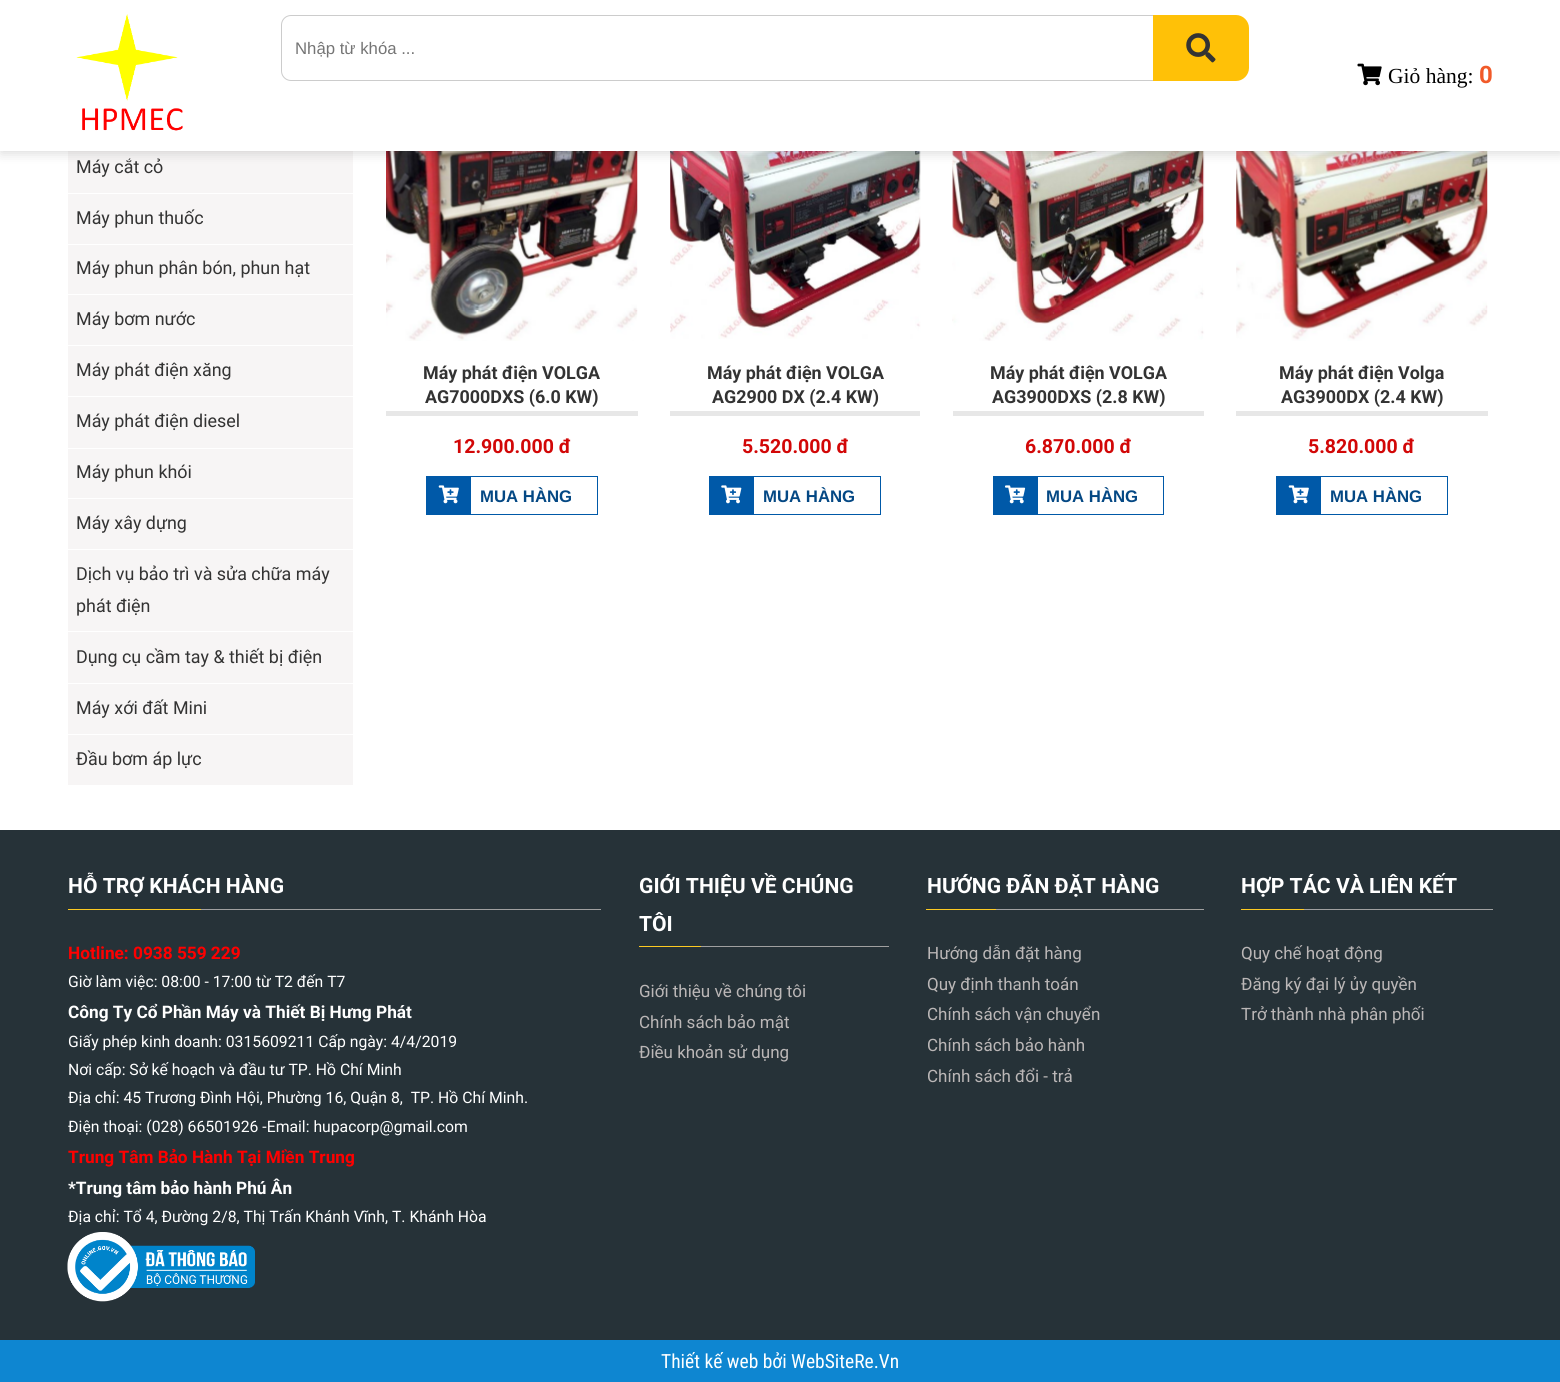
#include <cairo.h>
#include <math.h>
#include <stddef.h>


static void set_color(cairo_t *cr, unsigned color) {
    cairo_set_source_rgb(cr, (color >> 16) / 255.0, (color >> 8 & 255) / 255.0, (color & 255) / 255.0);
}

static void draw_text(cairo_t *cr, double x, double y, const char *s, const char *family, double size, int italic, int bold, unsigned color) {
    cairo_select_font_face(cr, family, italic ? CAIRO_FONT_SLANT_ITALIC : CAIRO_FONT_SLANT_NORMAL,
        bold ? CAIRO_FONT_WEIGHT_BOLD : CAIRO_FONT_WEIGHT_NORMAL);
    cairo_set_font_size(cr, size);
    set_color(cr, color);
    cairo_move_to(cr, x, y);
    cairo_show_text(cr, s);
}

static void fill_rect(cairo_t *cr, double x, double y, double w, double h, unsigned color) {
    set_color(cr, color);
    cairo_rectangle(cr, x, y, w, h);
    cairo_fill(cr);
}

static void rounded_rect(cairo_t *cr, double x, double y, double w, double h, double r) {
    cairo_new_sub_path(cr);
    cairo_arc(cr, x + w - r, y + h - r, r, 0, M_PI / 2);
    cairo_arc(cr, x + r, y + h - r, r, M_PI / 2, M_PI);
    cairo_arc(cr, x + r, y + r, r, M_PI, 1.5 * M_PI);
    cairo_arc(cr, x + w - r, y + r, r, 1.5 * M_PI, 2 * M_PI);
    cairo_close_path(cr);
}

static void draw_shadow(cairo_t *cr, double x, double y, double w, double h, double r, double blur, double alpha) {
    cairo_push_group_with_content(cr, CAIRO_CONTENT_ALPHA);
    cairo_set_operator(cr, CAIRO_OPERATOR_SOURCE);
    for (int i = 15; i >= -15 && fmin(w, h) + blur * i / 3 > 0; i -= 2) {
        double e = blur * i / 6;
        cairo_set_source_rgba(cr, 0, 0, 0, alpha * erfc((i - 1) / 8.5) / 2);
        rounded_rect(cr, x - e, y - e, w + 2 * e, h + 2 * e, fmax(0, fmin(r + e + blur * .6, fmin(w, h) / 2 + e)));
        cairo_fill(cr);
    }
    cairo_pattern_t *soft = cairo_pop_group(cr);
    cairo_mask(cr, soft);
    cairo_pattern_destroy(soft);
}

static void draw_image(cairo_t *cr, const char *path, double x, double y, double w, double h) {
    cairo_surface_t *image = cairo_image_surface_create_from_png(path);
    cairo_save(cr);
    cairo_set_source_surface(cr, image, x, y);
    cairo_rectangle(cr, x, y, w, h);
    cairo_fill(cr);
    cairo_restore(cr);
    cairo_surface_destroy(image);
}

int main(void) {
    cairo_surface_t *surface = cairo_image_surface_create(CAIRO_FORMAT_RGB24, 1560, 1382);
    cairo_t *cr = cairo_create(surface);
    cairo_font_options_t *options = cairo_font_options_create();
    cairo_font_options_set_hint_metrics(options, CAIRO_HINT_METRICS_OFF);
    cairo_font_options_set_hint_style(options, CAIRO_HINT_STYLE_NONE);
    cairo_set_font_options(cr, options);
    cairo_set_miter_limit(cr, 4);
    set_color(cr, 0xFFFFFF);
    cairo_paint(cr);
    fill_rect(cr, 68, 151, 285, 634, 0xF7F5F5);
    draw_image(cr, "assets/img4.png", 386, 151, 252, 190);
    draw_image(cr, "assets/img6.png", 670, 151, 251, 188);
    draw_image(cr, "assets/img8.png", 952, 151, 253, 190);
    draw_image(cr, "assets/img10.png", 1236, 151, 252, 190);
    set_color(cr, 0x000000);
    draw_shadow(cr, 1, 1, 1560, 152, 0, 6, 0.15);
    fill_rect(cr, 0, 0, 1560, 151, 0xFFFFFF);
    draw_image(cr, "assets/img1.png", 76, 14, 107, 117);
    rounded_rect(cr, 281.5, 15.5, 899, 65, 9.5);
    set_color(cr, 0xCCCCCC);
    cairo_set_line_width(cr, 1);
    cairo_stroke(cr);
    draw_text(cr, 295, 54, "Nhập từ khóa ...", "Liberation Sans", 16.75, 0, 0, 0x757575);
    set_color(cr, 0xFFC107);
    cairo_new_path(cr);
    cairo_move_to(cr, 1153, 15);
    cairo_line_to(cr, 1236, 15);
    cairo_curve_to(cr, 1243, 15, 1249, 21, 1249, 28);
    cairo_line_to(cr, 1249, 68);
    cairo_curve_to(cr, 1249, 75, 1243, 81, 1236, 81);
    cairo_line_to(cr, 1153, 81);
    cairo_close_path(cr);
    cairo_fill(cr);
    draw_image(cr, "assets/img2.png", 1186, 33, 30, 30);
    draw_image(cr, "assets/img3.png", 1357, 63, 25, 23);
    draw_text(cr, 1388, 83, "Giỏ hàng:", "Liberation Serif", 21.5, 0, 0, 0x000000);
    draw_text(cr, 1479, 83, "0", "Roboto", 24, 0, 1, 0xF15A29);
    fill_rect(cr, 68, 193, 285, 1, 0xFFFFFF);
    draw_text(cr, 76, 173, "Máy cắt cỏ", "Roboto", 17.9, 0, 0, 0x333333);
    fill_rect(cr, 68, 244, 285, 1, 0xFFFFFF);
    draw_text(cr, 76, 224, "Máy phun thuốc", "Roboto", 17.9, 0, 0, 0x333333);
    fill_rect(cr, 68, 294, 285, 1, 0xFFFFFF);
    draw_text(cr, 76, 274, "Máy phun phân bón, phun hạt", "Roboto", 17.9, 0, 0, 0x333333);
    fill_rect(cr, 68, 345, 285, 1, 0xFFFFFF);
    draw_text(cr, 76, 325, "Máy bơm nước", "Roboto", 17.9, 0, 0, 0x333333);
    fill_rect(cr, 68, 396, 285, 1, 0xFFFFFF);
    draw_text(cr, 76, 376, "Máy phát điện xăng", "Roboto", 17.9, 0, 0, 0x333333);
    fill_rect(cr, 68, 448, 285, 1, 0xFFFFFF);
    draw_text(cr, 76, 427, "Máy phát điện diesel", "Roboto", 17.9, 0, 0, 0x333333);
    fill_rect(cr, 68, 498, 285, 1, 0xFFFFFF);
    draw_text(cr, 76, 478, "Máy phun khói", "Roboto", 17.9, 0, 0, 0x333333);
    fill_rect(cr, 68, 549, 285, 1, 0xFFFFFF);
    draw_text(cr, 76, 529, "Máy xây dựng", "Roboto", 17.9, 0, 0, 0x333333);
    fill_rect(cr, 68, 631, 285, 1, 0xFFFFFF);
    draw_text(cr, 76, 580, "Dịch vụ bảo trì và sửa chữa máy", "Roboto", 17.9, 0, 0, 0x333333);
    draw_text(cr, 76, 612, "phát điện", "Roboto", 17.9, 0, 0, 0x333333);
    fill_rect(cr, 68, 683, 285, 1, 0xFFFFFF);
    draw_text(cr, 76, 663, "Dụng cụ cầm tay & thiết bị điện", "Roboto", 17.9, 0, 0, 0x333333);
    fill_rect(cr, 68, 734, 285, 1, 0xFFFFFF);
    draw_text(cr, 76, 714, "Máy xới đất Mini", "Roboto", 17.9, 0, 0, 0x333333);
    draw_text(cr, 76, 765, "Đầu bơm áp lực", "Roboto", 17.9, 0, 0, 0x333333);
    fill_rect(cr, 386, 411, 252, 5, 0xE7E7E7);
    draw_text(cr, 423, 379, "Máy phát điện VOLGA", "Roboto", 17.9, 0, 1, 0x333333);
    draw_text(cr, 425, 403, "AG7000DXS (6.0 KW)", "Roboto", 17.9, 0, 1, 0x333333);
    draw_text(cr, 453, 453, "12.900.000 đ", "Roboto", 19.5, 0, 1, 0xD20707);
    cairo_rectangle(cr, 426.5, 476.5, 171, 38);
    set_color(cr, 0x0059A8);
    cairo_stroke(cr);
    fill_rect(cr, 427, 477, 44, 37, 0x0059A8);
    draw_image(cr, "assets/img5.png", 438, 485, 21, 19);
    draw_text(cr, 480, 502, "MUA HÀNG", "Liberation Sans", 16.75, 0, 1, 0x044884);
    fill_rect(cr, 670, 411, 250, 5, 0xE7E7E7);
    draw_text(cr, 707, 379, "Máy phát điện VOLGA", "Roboto", 17.9, 0, 1, 0x333333);
    draw_text(cr, 712, 403, "AG2900 DX (2.4 KW)", "Roboto", 17.9, 0, 1, 0x333333);
    draw_text(cr, 742, 453, "5.520.000 đ", "Roboto", 19.5, 0, 1, 0xD20707);
    cairo_rectangle(cr, 709.5, 476.5, 171, 38);
    set_color(cr, 0x0059A8);
    cairo_stroke(cr);
    fill_rect(cr, 710, 477, 44, 37, 0x0059A8);
    draw_image(cr, "assets/img7.png", 721, 485, 21, 19);
    draw_text(cr, 763, 502, "MUA HÀNG", "Liberation Sans", 16.75, 0, 1, 0x044884);
    fill_rect(cr, 953, 411, 251, 5, 0xE7E7E7);
    draw_text(cr, 990, 379, "Máy phát điện VOLGA", "Roboto", 17.9, 0, 1, 0x333333);
    draw_text(cr, 992, 403, "AG3900DXS (2.8 KW)", "Roboto", 17.9, 0, 1, 0x333333);
    draw_text(cr, 1025, 453, "6.870.000 đ", "Roboto", 19.5, 0, 1, 0xD20707);
    cairo_rectangle(cr, 993.5, 476.5, 170, 38);
    set_color(cr, 0x0059A8);
    cairo_stroke(cr);
    fill_rect(cr, 994, 477, 44, 37, 0x0059A8);
    draw_image(cr, "assets/img9.png", 1005, 485, 21, 19);
    draw_text(cr, 1046, 502, "MUA HÀNG", "Liberation Sans", 16.75, 0, 1, 0x044884);
    fill_rect(cr, 1236, 411, 252, 5, 0xE7E7E7);
    draw_text(cr, 1279, 379, "Máy phát điện Volga", "Roboto", 17.9, 0, 1, 0x333333);
    draw_text(cr, 1281, 403, "AG3900DX (2.4 KW)", "Roboto", 17.9, 0, 1, 0x333333);
    draw_text(cr, 1308, 453, "5.820.000 đ", "Roboto", 19.5, 0, 1, 0xD20707);
    cairo_rectangle(cr, 1276.5, 476.5, 171, 38);
    set_color(cr, 0x0059A8);
    cairo_stroke(cr);
    fill_rect(cr, 1277, 477, 44, 37, 0x0059A8);
    draw_image(cr, "assets/img5.png", 1288, 485, 21, 19);
    draw_text(cr, 1330, 502, "MUA HÀNG", "Liberation Sans", 16.75, 0, 1, 0x044884);
    fill_rect(cr, 0, 830, 1560, 510, 0x263238);
    fill_rect(cr, 201, 909, 400, 1, 0xA0A0A0);
    draw_text(cr, 68, 893, "HỖ TRỢ KHÁCH HÀNG", "Roboto", 21.1, 0, 1, 0xFFFFFF);
    fill_rect(cr, 68, 909, 133, 1, 0xFDCA22);
    draw_text(cr, 68, 959, "Hotline: 0938 559 229", "Roboto", 17.25, 0, 1, 0xFF0000);
    draw_text(cr, 68, 987, "Giờ làm việc: 08:00 - 17:00 từ T2 đến T7", "Roboto", 15.75, 0, 0, 0xFFFFFF);
    draw_text(cr, 68, 1018, "Công Ty Cổ Phần Máy và Thiết Bị Hưng Phát", "Roboto", 17.25, 0, 1, 0xFFFFFF);
    draw_text(cr, 68, 1047, "Giấy phép kinh doanh: 0315609211 Cấp ngày: 4/4/2019", "Roboto", 15.75, 0, 0, 0xFFFFFF);
    draw_text(cr, 68, 1075, "Nơi cấp: Sở kế hoạch và đầu tư TP. Hồ Chí Minh", "Roboto", 15.75, 0, 0, 0xFFFFFF);
    draw_text(cr, 68, 1103, "Địa chỉ: 45 Trương Đình Hội, Phường 16, Quận 8,  TP. Hồ Chí Minh.", "Roboto", 15.75, 0, 0, 0xFFFFFF);
    draw_text(cr, 68, 1132, "Điện thoại: (028) 66501926 -Email: hupacorp@gmail.com", "Roboto", 15.75, 0, 0, 0xFFFFFF);
    draw_text(cr, 68, 1163, "Trung Tâm Bảo Hành Tại Miền Trung", "Roboto", 17.25, 0, 1, 0xFF0000);
    draw_text(cr, 68, 1194, "*Trung tâm bảo hành Phú Ân", "Roboto", 17.25, 0, 1, 0xFFFFFF);
    draw_text(cr, 68, 1222, "Địa chỉ: Tổ 4, Đường 2/8, Thị Trấn Khánh Vĩnh, T. Khánh Hòa", "Roboto", 15.75, 0, 0, 0xFFFFFF);
    draw_image(cr, "assets/img11.png", 67, 1232, 188, 70);
    fill_rect(cr, 701, 946, 188, 1, 0xA0A0A0);
    draw_text(cr, 639, 893, "GIỚI THIỆU VỀ CHÚNG", "Roboto", 21.1, 0, 1, 0xFFFFFF);
    draw_text(cr, 639, 931, "TÔI", "Roboto", 21.1, 0, 1, 0xFFFFFF);
    fill_rect(cr, 639, 946, 62, 1, 0xFDCA22);
    draw_text(cr, 639, 997, "Giới thiệu về chúng tôi", "Roboto", 17, 0, 0, 0xBBB7B7);
    draw_text(cr, 639, 1028, "Chính sách bảo mật", "Roboto", 17, 0, 0, 0xBBB7B7);
    draw_text(cr, 639, 1058, "Điều khoản sử dụng", "Roboto", 17, 0, 0, 0xBBB7B7);
    fill_rect(cr, 996, 909, 208, 1, 0xA0A0A0);
    draw_text(cr, 927, 893, "HƯỚNG ĐÃN ĐẶT HÀNG", "Roboto", 21.1, 0, 1, 0xFFFFFF);
    fill_rect(cr, 926, 909, 70, 1, 0xFDCA22);
    draw_text(cr, 927, 959, "Hướng dẫn đặt hàng", "Roboto", 17, 0, 0, 0xBBB7B7);
    draw_text(cr, 927, 990, "Quy định thanh toán", "Roboto", 17, 0, 0, 0xBBB7B7);
    draw_text(cr, 927, 1020, "Chính sách vận chuyển", "Roboto", 17, 0, 0, 0xBBB7B7);
    draw_text(cr, 927, 1051, "Chính sách bảo hành", "Roboto", 17, 0, 0, 0xBBB7B7);
    draw_text(cr, 927, 1082, "Chính sách đổi - trả", "Roboto", 17, 0, 0, 0xBBB7B7);
    fill_rect(cr, 1304, 909, 189, 1, 0xA0A0A0);
    draw_text(cr, 1241, 893, "HỢP TÁC VÀ LIÊN KẾT", "Roboto", 21.1, 0, 1, 0xFFFFFF);
    fill_rect(cr, 1241, 909, 63, 1, 0xFDCA22);
    draw_text(cr, 1241, 959, "Quy chế hoạt động", "Roboto", 17, 0, 0, 0xBBB7B7);
    draw_text(cr, 1241, 990, "Đăng ký đại lý ủy quyền", "Roboto", 17, 0, 0, 0xBBB7B7);
    draw_text(cr, 1241, 1020, "Trở thành nhà phân phối", "Roboto", 17, 0, 0, 0xBBB7B7);
    fill_rect(cr, 0, 1340, 1560, 42, 0x0E86D1);
    draw_text(cr, 661, 1368, "Thiết kế web bởi WebSiteRe.Vn", "Roboto Condensed", 19.5, 0, 0, 0xFFFFFF);
    cairo_surface_write_to_png(surface, "output.png");
    cairo_font_options_destroy(options);
    cairo_destroy(cr);
    cairo_surface_destroy(surface);
    return 0;
}
